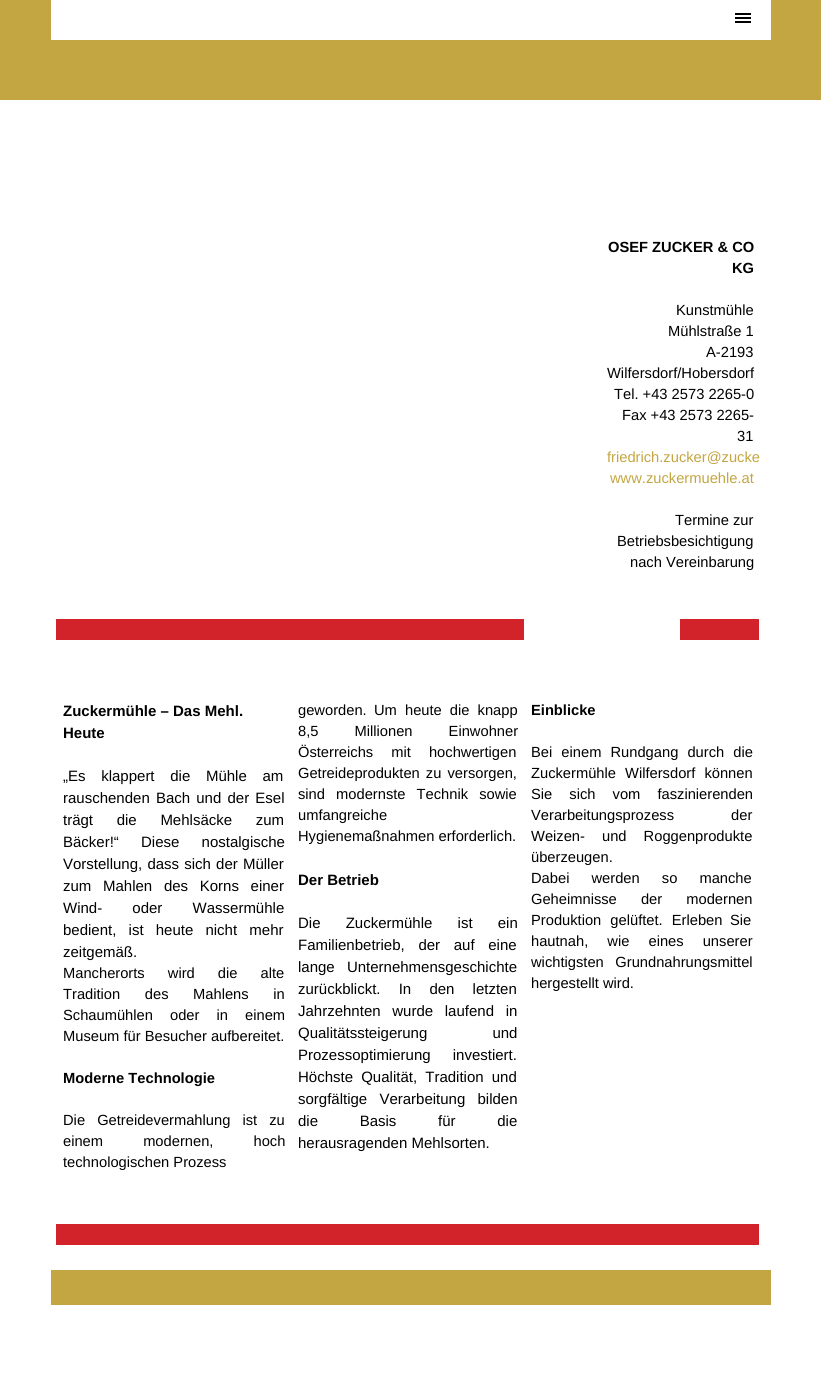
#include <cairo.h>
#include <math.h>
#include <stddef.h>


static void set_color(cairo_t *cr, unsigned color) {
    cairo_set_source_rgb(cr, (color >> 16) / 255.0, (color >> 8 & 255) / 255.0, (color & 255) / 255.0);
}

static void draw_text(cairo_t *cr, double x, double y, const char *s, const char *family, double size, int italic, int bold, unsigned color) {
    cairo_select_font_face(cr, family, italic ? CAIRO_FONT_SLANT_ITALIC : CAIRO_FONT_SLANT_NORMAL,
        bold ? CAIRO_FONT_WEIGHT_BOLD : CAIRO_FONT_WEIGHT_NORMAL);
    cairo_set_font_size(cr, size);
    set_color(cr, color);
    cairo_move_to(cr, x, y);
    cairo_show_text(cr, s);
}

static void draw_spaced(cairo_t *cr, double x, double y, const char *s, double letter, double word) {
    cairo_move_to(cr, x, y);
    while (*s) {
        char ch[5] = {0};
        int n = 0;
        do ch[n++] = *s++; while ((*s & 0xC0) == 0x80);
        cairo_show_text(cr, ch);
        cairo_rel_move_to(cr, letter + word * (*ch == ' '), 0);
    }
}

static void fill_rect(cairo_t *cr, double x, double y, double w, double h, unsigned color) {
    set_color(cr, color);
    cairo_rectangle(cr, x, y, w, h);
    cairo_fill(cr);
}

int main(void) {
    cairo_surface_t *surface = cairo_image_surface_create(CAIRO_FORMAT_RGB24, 821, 1376);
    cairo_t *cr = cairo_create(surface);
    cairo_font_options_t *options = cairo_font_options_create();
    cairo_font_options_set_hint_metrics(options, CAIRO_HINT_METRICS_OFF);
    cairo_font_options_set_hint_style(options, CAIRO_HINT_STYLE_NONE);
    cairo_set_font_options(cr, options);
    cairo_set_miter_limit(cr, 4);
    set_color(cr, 0xFFFFFF);
    cairo_paint(cr);
    fill_rect(cr, 0, 0, 821, 100, 0xC3A642);
    fill_rect(cr, 51, 0, 720, 40, 0xFFFFFF);
    fill_rect(cr, 735, 13, 16, 2, 0x000000);
    fill_rect(cr, 735, 17, 16, 2, 0x000000);
    fill_rect(cr, 735, 21, 16, 2, 0x000000);
    draw_text(cr, 608, 252, "OSEF ZUCKER & CO", "Liberation Sans", 14.7, 0, 1, 0x000000);
    draw_text(cr, 732, 273, "KG", "Liberation Sans", 14.7, 0, 1, 0x000000);
    draw_text(cr, 676, 315, "Kunstmühle", "Liberation Sans", 14.7, 0, 0, 0x000000);
    draw_text(cr, 668, 336, "Mühlstraße 1", "Liberation Sans", 14.7, 0, 0, 0x000000);
    draw_text(cr, 706, 357, "A-2193", "Liberation Sans", 14.7, 0, 0, 0x000000);
    draw_text(cr, 607, 378, "Wilfersdorf/Hobersdorf", "Liberation Sans", 14.7, 0, 0, 0x000000);
    draw_text(cr, 614, 399, "Tel. +43 2573 2265-0", "Liberation Sans", 14.7, 0, 0, 0x000000);
    draw_text(cr, 622, 420, "Fax +43 2573 2265-", "Liberation Sans", 14.7, 0, 0, 0x000000);
    draw_text(cr, 737, 441, "31", "Liberation Sans", 14.7, 0, 0, 0x000000);
    draw_text(cr, 607, 462, "friedrich.zucker@zucke", "Liberation Sans", 14.7, 0, 0, 0xC3A642);
    draw_text(cr, 610, 483, "www.zuckermuehle.at", "Liberation Sans", 14.7, 0, 0, 0xC3A642);
    draw_text(cr, 675, 525, "Termine zur", "Liberation Sans", 14.7, 0, 0, 0x000000);
    draw_text(cr, 617, 546, "Betriebsbesichtigung", "Liberation Sans", 14.7, 0, 0, 0x000000);
    draw_text(cr, 630, 567, "nach Vereinbarung", "Liberation Sans", 14.7, 0, 0, 0x000000);
    fill_rect(cr, 56, 619, 468, 21, 0xD2232B);
    fill_rect(cr, 680, 619, 79, 21, 0xD2232B);
    draw_text(cr, 63, 716, "Zuckermühle – Das Mehl.", "Liberation Sans", 15, 0, 1, 0x000000);
    draw_text(cr, 63, 738, "Heute", "Liberation Sans", 15, 0, 1, 0x000000);
    cairo_select_font_face(cr, "Liberation Sans", CAIRO_FONT_SLANT_NORMAL, CAIRO_FONT_WEIGHT_NORMAL);
    draw_spaced(cr, 63, 781, "„Es klappert die Mühle am", 0, 11.5);
    draw_spaced(cr, 63, 803, "rauschenden Bach und der Esel", 0, 2);
    draw_spaced(cr, 63, 825, "trägt die Mehlsäcke zum", 0, 19.5);
    draw_spaced(cr, 63, 847, "Bäcker!“ Diese nostalgische", 0, 18);
    draw_spaced(cr, 63, 869, "Vorstellung, dass sich der Müller", 0, 1);
    draw_spaced(cr, 63, 891, "zum Mahlen des Korns einer", 0, 7.5);
    draw_spaced(cr, 63, 913, "Wind- oder Wassermühle", 0, 26);
    draw_spaced(cr, 63, 935, "bedient, ist heute nicht mehr", 0, 8);
    draw_text(cr, 63, 957, "zeitgemäß.", "Liberation Sans", 15, 0, 0, 0x000000);
    cairo_set_font_size(cr, 14.7);
    draw_spaced(cr, 63, 978, "Mancherorts wird die alte", 0, 19);
    draw_spaced(cr, 63, 999, "Tradition des Mahlens in", 0, 20.5);
    draw_spaced(cr, 63, 1020, "Schaumühlen oder in einem", 0, 13);
    draw_text(cr, 63, 1041, "Museum für Besucher aufbereitet.", "Liberation Sans", 14.7, 0, 0, 0x000000);
    draw_text(cr, 63, 1083, "Moderne Technologie", "Liberation Sans", 14.7, 0, 1, 0x000000);
    cairo_select_font_face(cr, "Liberation Sans", CAIRO_FONT_SLANT_NORMAL, CAIRO_FONT_WEIGHT_NORMAL);
    draw_spaced(cr, 63, 1125, "Die Getreidevermahlung ist zu", 0, 8);
    draw_spaced(cr, 63, 1146, "einem modernen, hoch", 0, 36);
    draw_text(cr, 63, 1167, "technologischen Prozess", "Liberation Sans", 14.7, 0, 0, 0x000000);
    draw_text(cr, 298, 715, "geworden.", "Liberation Sans", 14.7, 0, 0, 0x000000);
    draw_spaced(cr, 374, 715, "Um heute die knapp", 0, 4);
    draw_spaced(cr, 298, 736, "8,5 Millionen Einwohner", 0, 32);
    draw_spaced(cr, 298, 757, "Österreichs mit hochwertigen", 0, 14);
    draw_spaced(cr, 298, 778, "Getreideprodukten zu versorgen,", 0, 2);
    draw_spaced(cr, 298, 799, "sind modernste Technik sowie", 0, 7);
    draw_text(cr, 298, 820, "umfangreiche", "Liberation Sans", 14.7, 0, 0, 0x000000);
    draw_text(cr, 298, 841, "Hygienemaßnahmen erforderlich.", "Liberation Sans", 14.7, 0, 0, 0x000000);
    draw_text(cr, 298, 885, "Der Betrieb", "Liberation Sans", 15, 0, 1, 0x000000);
    cairo_select_font_face(cr, "Liberation Sans", CAIRO_FONT_SLANT_NORMAL, CAIRO_FONT_WEIGHT_NORMAL);
    draw_spaced(cr, 298, 928, "Die Zuckermühle ist ein", 0, 21);
    draw_spaced(cr, 298, 950, "Familienbetrieb, der auf eine", 0, 9.5);
    draw_spaced(cr, 298, 972, "lange Unternehmensgeschichte", 0, 8);
    draw_spaced(cr, 298, 994, "zurückblickt. In den letzten", 0, 14);
    draw_spaced(cr, 298, 1016, "Jahrzehnten wurde laufend in", 0, 7.5);
    draw_spaced(cr, 298, 1038, "Qualitätssteigerung und", 0, 61);
    draw_spaced(cr, 298, 1060, "Prozessoptimierung investiert.", 0, 18);
    draw_spaced(cr, 298, 1082, "Höchste Qualität, Tradition und", 0, 4);
    draw_spaced(cr, 298, 1104, "sorgfältige Verarbeitung bilden", 0, 8);
    draw_spaced(cr, 298, 1126, "die Basis für die", 0, 37.5);
    draw_text(cr, 298, 1148, "herausragenden Mehlsorten.", "Liberation Sans", 15, 0, 0, 0x000000);
    draw_text(cr, 531, 715, "Einblicke", "Liberation Sans", 14.7, 0, 1, 0x000000);
    cairo_select_font_face(cr, "Liberation Sans", CAIRO_FONT_SLANT_NORMAL, CAIRO_FONT_WEIGHT_NORMAL);
    draw_spaced(cr, 531, 757, "Bei einem Rundgang durch die", 0, 5);
    draw_spaced(cr, 531, 778, "Zuckermühle Wilfersdorf können", 0, 5);
    draw_spaced(cr, 531, 799, "Sie sich vom faszinierenden", 0, 13);
    draw_spaced(cr, 531, 820, "Verarbeitungsprozess der", 0, 53);
    draw_spaced(cr, 531, 841, "Weizen- und Roggenprodukte", 0, 13);
    draw_text(cr, 531, 862, "überzeugen.", "Liberation Sans", 14.7, 0, 0, 0x000000);
    draw_spaced(cr, 531, 883, "Dabei werden so manche", 0, 18);
    draw_spaced(cr, 531, 904, "Geheimnisse der modernen", 0, 20);
    draw_spaced(cr, 531, 925, "Produktion gelüftet. Erleben", 0, 5);
    draw_text(cr, 730, 925, "Sie", "Liberation Sans", 14.7, 0, 0, 0x000000);
    draw_spaced(cr, 531, 946, "hautnah, wie eines unserer", 0, 15);
    draw_spaced(cr, 531, 967, "wichtigsten Grundnahrungsmittel", 0, 7.5);
    draw_text(cr, 531, 988, "hergestellt wird.", "Liberation Sans", 14.7, 0, 0, 0x000000);
    fill_rect(cr, 56, 1224, 703, 21, 0xD2232B);
    fill_rect(cr, 51, 1270, 720, 35, 0xC3A642);
    cairo_surface_write_to_png(surface, "output.png");
    cairo_font_options_destroy(options);
    cairo_destroy(cr);
    cairo_surface_destroy(surface);
    return 0;
}
